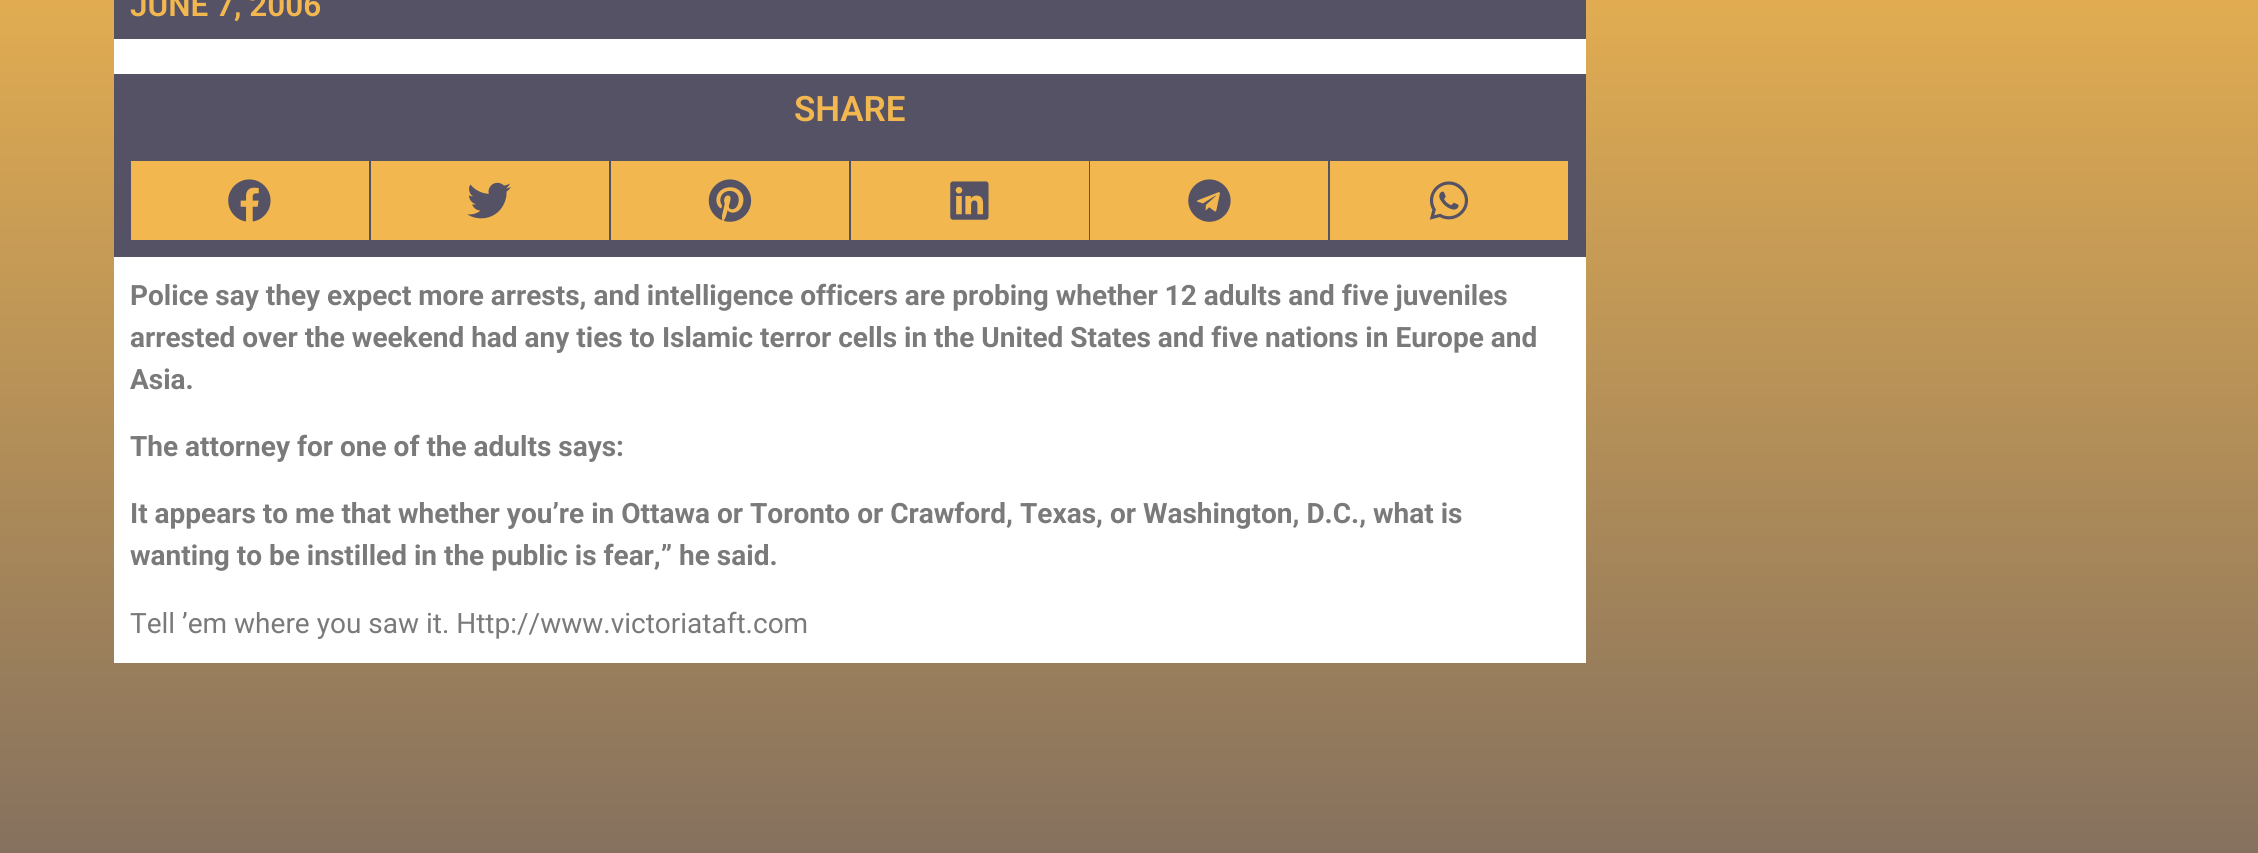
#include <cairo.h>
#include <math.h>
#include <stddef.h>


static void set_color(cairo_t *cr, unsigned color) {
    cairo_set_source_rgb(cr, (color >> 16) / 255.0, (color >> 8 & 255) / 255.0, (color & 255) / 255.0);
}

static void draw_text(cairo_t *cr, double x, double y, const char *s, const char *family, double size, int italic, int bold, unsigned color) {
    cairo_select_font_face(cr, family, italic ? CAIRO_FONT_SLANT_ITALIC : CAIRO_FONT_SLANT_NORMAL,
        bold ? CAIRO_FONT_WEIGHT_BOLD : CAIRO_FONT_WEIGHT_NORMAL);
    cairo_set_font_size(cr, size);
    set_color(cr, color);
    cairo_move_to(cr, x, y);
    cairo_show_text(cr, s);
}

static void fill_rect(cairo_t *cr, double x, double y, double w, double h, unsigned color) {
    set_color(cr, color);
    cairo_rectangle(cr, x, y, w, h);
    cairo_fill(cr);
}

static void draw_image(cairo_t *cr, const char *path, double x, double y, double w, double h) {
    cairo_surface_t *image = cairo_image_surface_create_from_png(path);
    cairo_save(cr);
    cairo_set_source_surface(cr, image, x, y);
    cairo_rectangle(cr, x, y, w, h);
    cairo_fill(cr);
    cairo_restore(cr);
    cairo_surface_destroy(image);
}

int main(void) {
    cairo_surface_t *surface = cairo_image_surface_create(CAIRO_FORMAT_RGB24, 2258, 853);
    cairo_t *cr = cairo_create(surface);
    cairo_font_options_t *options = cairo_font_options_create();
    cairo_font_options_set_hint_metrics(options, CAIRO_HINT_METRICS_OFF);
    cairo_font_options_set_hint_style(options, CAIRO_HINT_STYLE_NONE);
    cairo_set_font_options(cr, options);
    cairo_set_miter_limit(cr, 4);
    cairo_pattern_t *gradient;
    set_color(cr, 0xFFFFFF);
    cairo_paint(cr);
    gradient = cairo_pattern_create_linear(1130, -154, 1130, 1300);
    cairo_pattern_add_color_stop_rgba(gradient, 0, 0.949, 0.718, 0.31, 1);
    cairo_pattern_add_color_stop_rgba(gradient, 1, 0.333, 0.322, 0.396, 1);
    cairo_set_source(cr, gradient);
    cairo_pattern_destroy(gradient);
    cairo_rectangle(cr, 0, 0, 2258, 853);
    cairo_fill(cr);
    fill_rect(cr, 114, 0, 1472, 39, 0x555265);
    draw_text(cr, 130, 16, "JUNE 7, 2006", "Roboto SemiBold", 31.5, 0, 0, 0xF2B74F);
    fill_rect(cr, 114, 39, 1472, 35, 0xFFFFFF);
    fill_rect(cr, 114, 74, 1472, 183, 0x555265);
    draw_text(cr, 794, 121, "SHARE", "Roboto SemiBold", 35, 0, 0, 0xF2B74F);
    fill_rect(cr, 131, 161, 238, 79, 0xF2B74F);
    draw_image(cr, "assets/img1.png", 228, 179, 43, 43);
    fill_rect(cr, 371, 161, 238, 79, 0xF2B74F);
    draw_image(cr, "assets/img2.png", 467, 182, 44, 37);
    fill_rect(cr, 611, 161, 238, 79, 0xF2B74F);
    draw_image(cr, "assets/img3.png", 708, 179, 44, 43);
    fill_rect(cr, 851, 161, 238, 79, 0xF2B74F);
    draw_image(cr, "assets/img4.png", 950, 181, 39, 39);
    fill_rect(cr, 1090, 161, 238, 79, 0xF2B74F);
    draw_image(cr, "assets/img5.png", 1188, 179, 43, 43);
    fill_rect(cr, 1330, 161, 238, 79, 0xF2B74F);
    draw_image(cr, "assets/img6.png", 1429, 181, 39, 39);
    fill_rect(cr, 114, 257, 1472, 406, 0xFFFFFF);
    draw_text(cr, 130, 305, "Police say they expect more arrests, and intelligence officers are probing whether 12 adults and five juveniles", "Roboto", 28, 0, 1, 0x7A7A7A);
    draw_text(cr, 130, 347, "arrested over the weekend had any ties to Islamic terror cells in the United States and five nations in Europe and", "Roboto", 28, 0, 1, 0x7A7A7A);
    draw_text(cr, 130, 389, "Asia.", "Roboto", 28, 0, 1, 0x7A7A7A);
    draw_text(cr, 130, 456, "The attorney for one of the adults says:", "Roboto", 28, 0, 1, 0x7A7A7A);
    draw_text(cr, 130, 523, "It appears to me that whether you’re in Ottawa or Toronto or Crawford, Texas, or Washington, D.C., what is", "Roboto", 28, 0, 1, 0x7A7A7A);
    draw_text(cr, 130, 565, "wanting to be instilled in the public is fear,” he said.", "Roboto", 28, 0, 1, 0x7A7A7A);
    draw_text(cr, 130, 633, "Tell ’em where you saw it. Http://www.victoriataft.com", "Roboto", 28, 0, 0, 0x7A7A7A);
    cairo_surface_write_to_png(surface, "output.png");
    cairo_font_options_destroy(options);
    cairo_destroy(cr);
    cairo_surface_destroy(surface);
    return 0;
}
